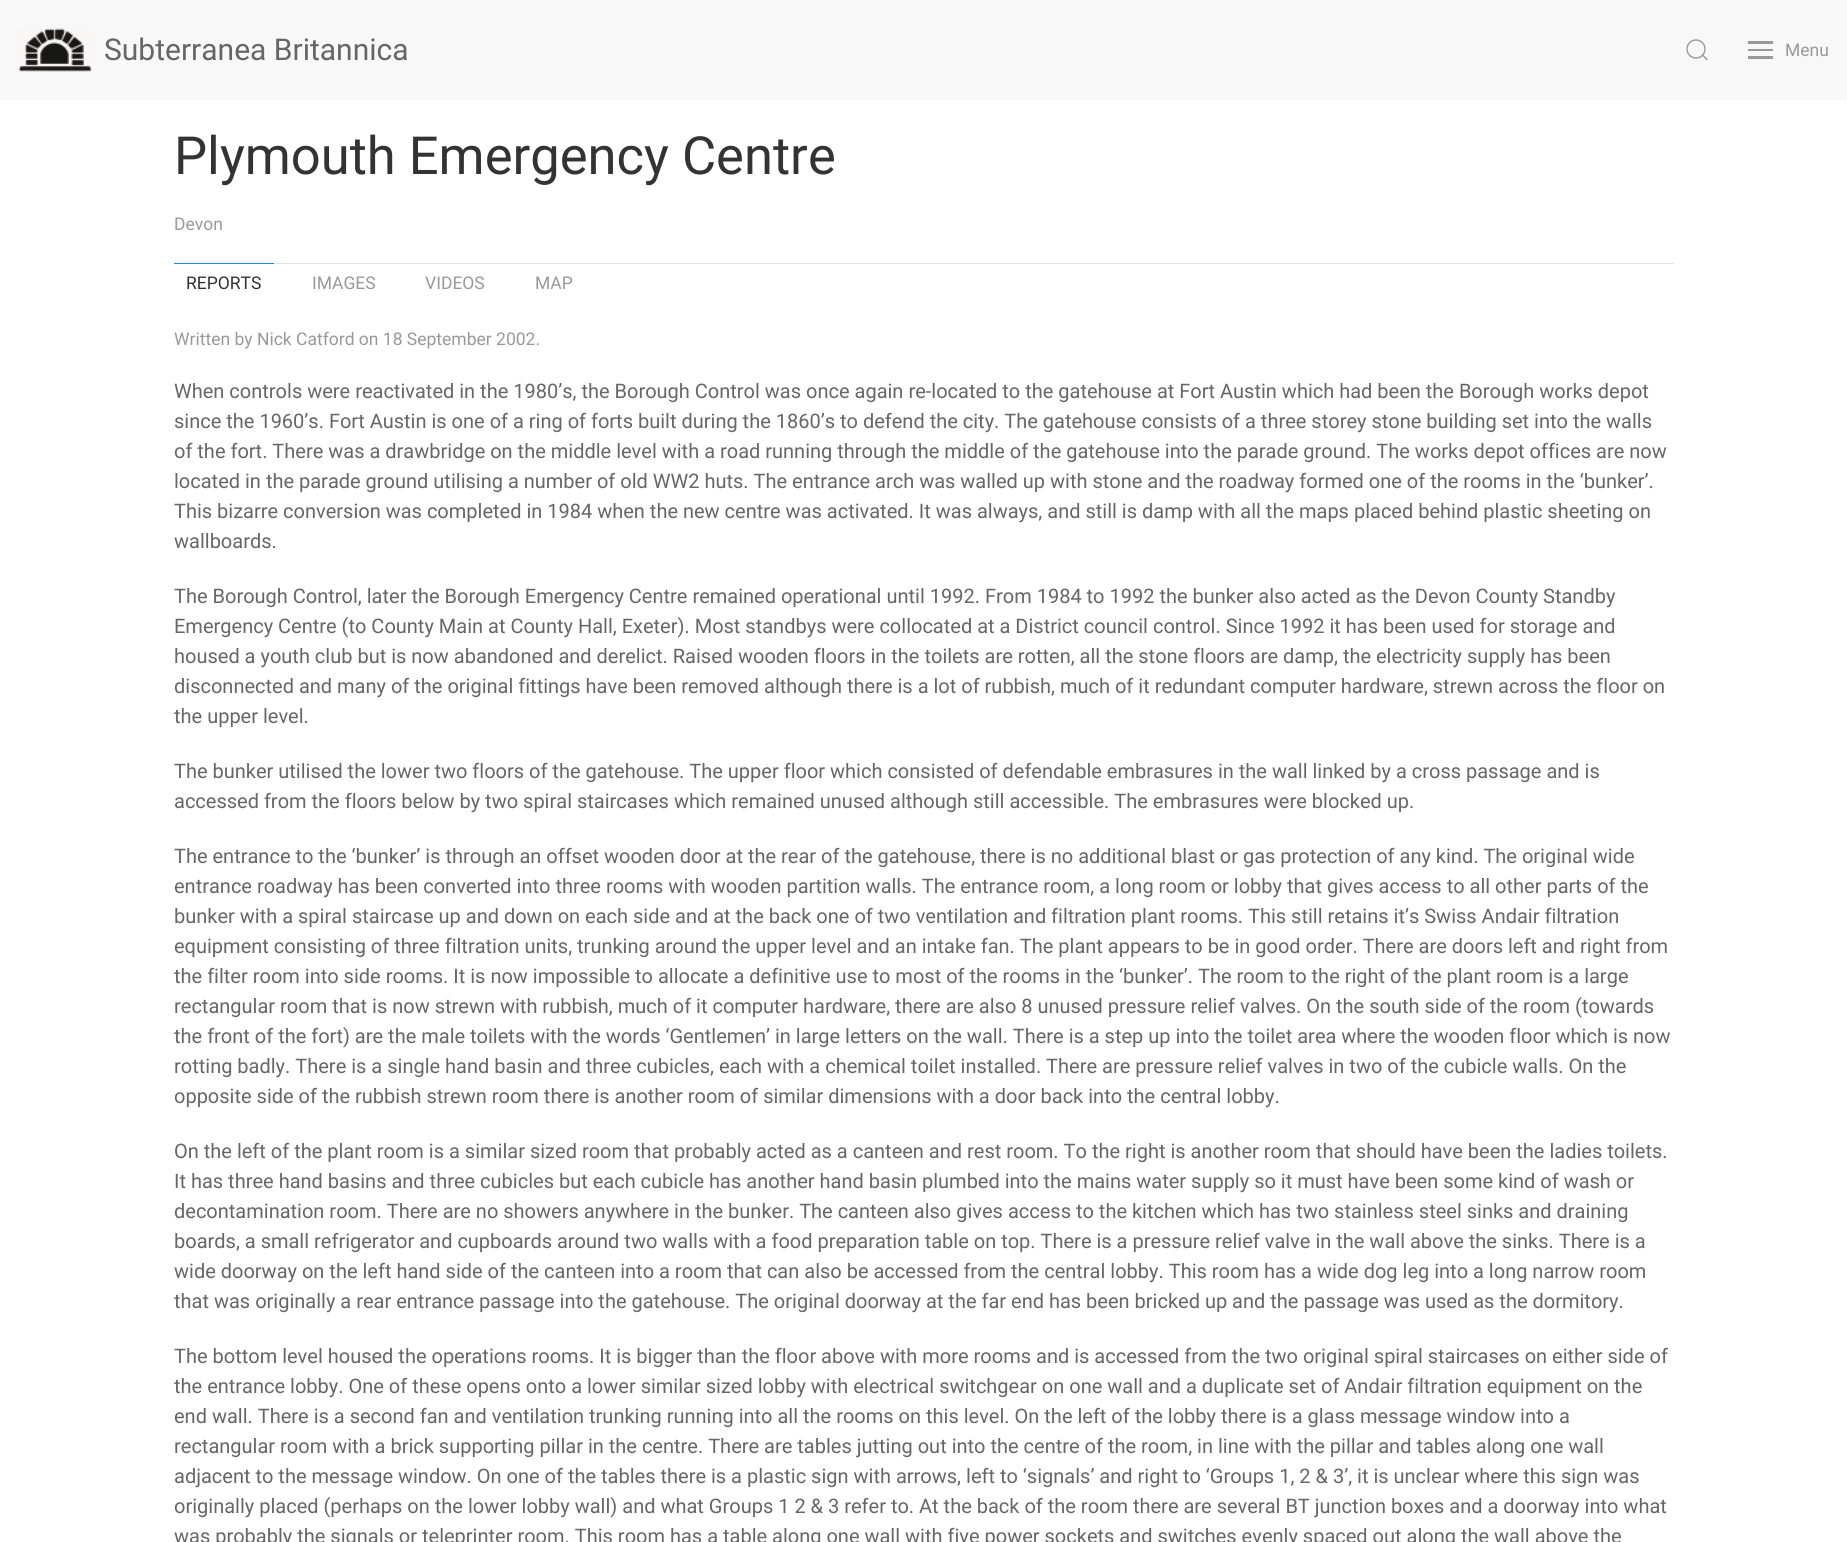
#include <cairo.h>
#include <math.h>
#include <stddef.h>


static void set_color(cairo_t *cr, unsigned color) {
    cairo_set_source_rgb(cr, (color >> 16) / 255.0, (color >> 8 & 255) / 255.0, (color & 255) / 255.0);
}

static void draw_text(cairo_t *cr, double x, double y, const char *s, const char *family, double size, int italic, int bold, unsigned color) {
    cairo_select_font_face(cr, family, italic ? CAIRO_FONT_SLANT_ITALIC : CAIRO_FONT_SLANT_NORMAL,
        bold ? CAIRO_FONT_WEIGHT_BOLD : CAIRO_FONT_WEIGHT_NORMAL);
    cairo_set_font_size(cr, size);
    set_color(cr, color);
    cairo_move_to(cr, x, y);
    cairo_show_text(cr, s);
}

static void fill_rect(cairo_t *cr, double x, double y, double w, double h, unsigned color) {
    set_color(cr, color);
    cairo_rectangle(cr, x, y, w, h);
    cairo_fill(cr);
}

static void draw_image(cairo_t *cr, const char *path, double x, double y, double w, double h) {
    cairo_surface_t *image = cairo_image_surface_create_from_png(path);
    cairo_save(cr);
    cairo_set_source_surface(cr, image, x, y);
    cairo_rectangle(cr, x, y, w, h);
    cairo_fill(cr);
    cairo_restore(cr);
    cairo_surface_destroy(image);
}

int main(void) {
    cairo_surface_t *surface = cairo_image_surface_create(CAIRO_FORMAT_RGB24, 1847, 1542);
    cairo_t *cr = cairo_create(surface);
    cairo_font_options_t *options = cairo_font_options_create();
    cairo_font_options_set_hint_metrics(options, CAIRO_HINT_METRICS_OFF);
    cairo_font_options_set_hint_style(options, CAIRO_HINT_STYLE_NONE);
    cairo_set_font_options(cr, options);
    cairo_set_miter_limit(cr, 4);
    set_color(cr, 0xFFFFFF);
    cairo_paint(cr);
    fill_rect(cr, 0, 0, 1847, 100, 0xF8F8F8);
    draw_image(cr, "assets/img1.png", 18, 28, 74, 44);
    draw_text(cr, 104, 60, "Subterranea Britannica", "Roboto", 30, 0, 0, 0x666666);
    cairo_new_path(cr);
    cairo_arc(cr, 1696, 49, 9, 0, 2 * M_PI);
    set_color(cr, 0x999999);
    cairo_set_line_width(cr, 1.4);
    cairo_stroke(cr);
    cairo_new_path(cr);
    cairo_move_to(cr, 1702.5, 55);
    cairo_line_to(cr, 1707.5, 60);
    cairo_close_path(cr);
    cairo_stroke(cr);
    fill_rect(cr, 1748, 41, 25, 3, 0x999999);
    fill_rect(cr, 1748, 49, 25, 2, 0x999999);
    fill_rect(cr, 1748, 56, 25, 3, 0x999999);
    draw_text(cr, 1785, 56, "Menu", "Roboto", 17.5, 0, 0, 0x999999);
    draw_text(cr, 174, 174, "Plymouth Emergency Centre", "Roboto", 52.5, 0, 0, 0x333333);
    draw_text(cr, 174, 230, "Devon", "Roboto", 17.5, 0, 0, 0x999999);
    fill_rect(cr, 274, 263, 1400, 1, 0xE5E5E5);
    fill_rect(cr, 174, 263, 100, 1, 0x1E87F0);
    draw_text(cr, 186, 289, "REPORTS", "Roboto", 17.5, 0, 0, 0x333333);
    draw_text(cr, 312, 289, "IMAGES", "Roboto", 17.5, 0, 0, 0x999999);
    draw_text(cr, 425, 289, "VIDEOS", "Roboto", 17.5, 0, 0, 0x999999);
    draw_text(cr, 535, 289, "MAP", "Roboto", 17.5, 0, 0, 0x999999);
    draw_text(cr, 174, 345, "Written by Nick Catford on 18 September 2002.", "Roboto", 17.5, 0, 0, 0x999999);
    draw_text(cr, 174, 398, "When controls were reactivated in the 1980’s, the Borough Control was once again re-located to the gatehouse at Fort Austin which had been the Borough works depot", "Roboto", 20, 0, 0, 0x666666);
    draw_text(cr, 174, 428, "since the 1960’s. Fort Austin is one of a ring of forts built during the 1860’s to defend the city. The gatehouse consists of a three storey stone building set into the walls", "Roboto", 20, 0, 0, 0x666666);
    draw_text(cr, 174, 458, "of the fort. There was a drawbridge on the middle level with a road running through the middle of the gatehouse into the parade ground. The works depot offices are now", "Roboto", 20, 0, 0, 0x666666);
    draw_text(cr, 174, 488, "located in the parade ground utilising a number of old WW2 huts. The entrance arch was walled up with stone and the roadway formed one of the rooms in the ‘bunker’.", "Roboto", 20, 0, 0, 0x666666);
    draw_text(cr, 174, 518, "This bizarre conversion was completed in 1984 when the new centre was activated. It was always, and still is damp with all the maps placed behind plastic sheeting on", "Roboto", 20, 0, 0, 0x666666);
    draw_text(cr, 174, 548, "wallboards.", "Roboto", 20, 0, 0, 0x666666);
    draw_text(cr, 174, 603, "The Borough Control, later the Borough Emergency Centre remained operational until 1992. From 1984 to 1992 the bunker also acted as the Devon County Standby", "Roboto", 20, 0, 0, 0x666666);
    draw_text(cr, 174, 633, "Emergency Centre (to County Main at County Hall, Exeter). Most standbys were collocated at a District council control. Since 1992 it has been used for storage and", "Roboto", 20, 0, 0, 0x666666);
    draw_text(cr, 174, 663, "housed a youth club but is now abandoned and derelict. Raised wooden floors in the toilets are rotten, all the stone floors are damp, the electricity supply has been", "Roboto", 20, 0, 0, 0x666666);
    draw_text(cr, 174, 693, "disconnected and many of the original fittings have been removed although there is a lot of rubbish, much of it redundant computer hardware, strewn across the floor on", "Roboto", 20, 0, 0, 0x666666);
    draw_text(cr, 174, 723, "the upper level.", "Roboto", 20, 0, 0, 0x666666);
    draw_text(cr, 174, 778, "The bunker utilised the lower two floors of the gatehouse. The upper floor which consisted of defendable embrasures in the wall linked by a cross passage and is", "Roboto", 20, 0, 0, 0x666666);
    draw_text(cr, 174, 808, "accessed from the floors below by two spiral staircases which remained unused although still accessible. The embrasures were blocked up.", "Roboto", 20, 0, 0, 0x666666);
    draw_text(cr, 174, 863, "The entrance to the ‘bunker’ is through an offset wooden door at the rear of the gatehouse, there is no additional blast or gas protection of any kind. The original wide", "Roboto", 20, 0, 0, 0x666666);
    draw_text(cr, 174, 893, "entrance roadway has been converted into three rooms with wooden partition walls. The entrance room, a long room or lobby that gives access to all other parts of the", "Roboto", 20, 0, 0, 0x666666);
    draw_text(cr, 174, 923, "bunker with a spiral staircase up and down on each side and at the back one of two ventilation and filtration plant rooms. This still retains it’s Swiss Andair filtration", "Roboto", 20, 0, 0, 0x666666);
    draw_text(cr, 174, 953, "equipment consisting of three filtration units, trunking around the upper level and an intake fan. The plant appears to be in good order. There are doors left and right from", "Roboto", 20, 0, 0, 0x666666);
    draw_text(cr, 174, 983, "the filter room into side rooms. It is now impossible to allocate a definitive use to most of the rooms in the ‘bunker’. The room to the right of the plant room is a large", "Roboto", 20, 0, 0, 0x666666);
    draw_text(cr, 174, 1013, "rectangular room that is now strewn with rubbish, much of it computer hardware, there are also 8 unused pressure relief valves. On the south side of the room (towards", "Roboto", 20, 0, 0, 0x666666);
    draw_text(cr, 174, 1043, "the front of the fort) are the male toilets with the words ‘Gentlemen’ in large letters on the wall. There is a step up into the toilet area where the wooden floor which is now", "Roboto", 20, 0, 0, 0x666666);
    draw_text(cr, 174, 1073, "rotting badly. There is a single hand basin and three cubicles, each with a chemical toilet installed. There are pressure relief valves in two of the cubicle walls. On the", "Roboto", 20, 0, 0, 0x666666);
    draw_text(cr, 174, 1103, "opposite side of the rubbish strewn room there is another room of similar dimensions with a door back into the central lobby.", "Roboto", 20, 0, 0, 0x666666);
    draw_text(cr, 174, 1158, "On the left of the plant room is a similar sized room that probably acted as a canteen and rest room. To the right is another room that should have been the ladies toilets.", "Roboto", 20, 0, 0, 0x666666);
    draw_text(cr, 174, 1188, "It has three hand basins and three cubicles but each cubicle has another hand basin plumbed into the mains water supply so it must have been some kind of wash or", "Roboto", 20, 0, 0, 0x666666);
    draw_text(cr, 174, 1218, "decontamination room. There are no showers anywhere in the bunker. The canteen also gives access to the kitchen which has two stainless steel sinks and draining", "Roboto", 20, 0, 0, 0x666666);
    draw_text(cr, 174, 1248, "boards, a small refrigerator and cupboards around two walls with a food preparation table on top. There is a pressure relief valve in the wall above the sinks. There is a", "Roboto", 20, 0, 0, 0x666666);
    draw_text(cr, 174, 1278, "wide doorway on the left hand side of the canteen into a room that can also be accessed from the central lobby. This room has a wide dog leg into a long narrow room", "Roboto", 20, 0, 0, 0x666666);
    draw_text(cr, 174, 1308, "that was originally a rear entrance passage into the gatehouse. The original doorway at the far end has been bricked up and the passage was used as the dormitory.", "Roboto", 20, 0, 0, 0x666666);
    draw_text(cr, 174, 1363, "The bottom level housed the operations rooms. It is bigger than the floor above with more rooms and is accessed from the two original spiral staircases on either side of", "Roboto", 20, 0, 0, 0x666666);
    draw_text(cr, 174, 1393, "the entrance lobby. One of these opens onto a lower similar sized lobby with electrical switchgear on one wall and a duplicate set of Andair filtration equipment on the", "Roboto", 20, 0, 0, 0x666666);
    draw_text(cr, 174, 1423, "end wall. There is a second fan and ventilation trunking running into all the rooms on this level. On the left of the lobby there is a glass message window into a", "Roboto", 20, 0, 0, 0x666666);
    draw_text(cr, 174, 1453, "rectangular room with a brick supporting pillar in the centre. There are tables jutting out into the centre of the room, in line with the pillar and tables along one wall", "Roboto", 20, 0, 0, 0x666666);
    draw_text(cr, 174, 1483, "adjacent to the message window. On one of the tables there is a plastic sign with arrows, left to ‘signals’ and right to ‘Groups 1, 2 & 3’, it is unclear where this sign was", "Roboto", 20, 0, 0, 0x666666);
    draw_text(cr, 174, 1513, "originally placed (perhaps on the lower lobby wall) and what Groups 1 2 & 3 refer to. At the back of the room there are several BT junction boxes and a doorway into what", "Roboto", 20, 0, 0, 0x666666);
    draw_text(cr, 174, 1543, "was probably the signals or teleprinter room. This room has a table along one wall with five power sockets and switches evenly spaced out along the wall above the", "Roboto", 20, 0, 0, 0x666666);
    cairo_surface_write_to_png(surface, "output.png");
    cairo_font_options_destroy(options);
    cairo_destroy(cr);
    cairo_surface_destroy(surface);
    return 0;
}
